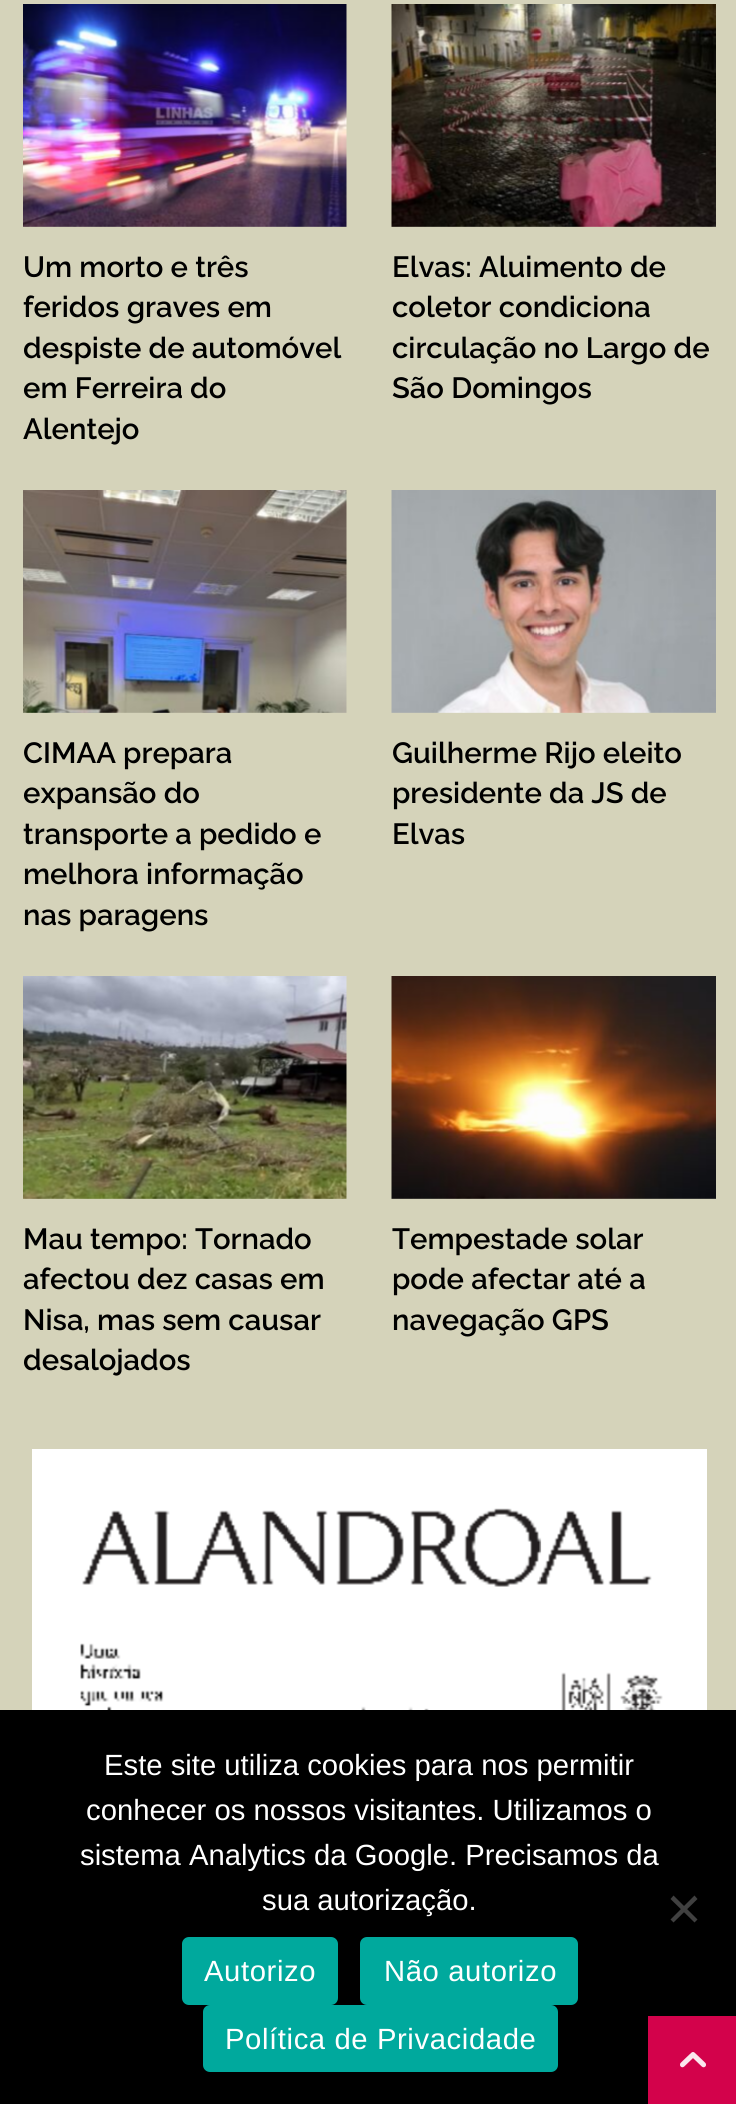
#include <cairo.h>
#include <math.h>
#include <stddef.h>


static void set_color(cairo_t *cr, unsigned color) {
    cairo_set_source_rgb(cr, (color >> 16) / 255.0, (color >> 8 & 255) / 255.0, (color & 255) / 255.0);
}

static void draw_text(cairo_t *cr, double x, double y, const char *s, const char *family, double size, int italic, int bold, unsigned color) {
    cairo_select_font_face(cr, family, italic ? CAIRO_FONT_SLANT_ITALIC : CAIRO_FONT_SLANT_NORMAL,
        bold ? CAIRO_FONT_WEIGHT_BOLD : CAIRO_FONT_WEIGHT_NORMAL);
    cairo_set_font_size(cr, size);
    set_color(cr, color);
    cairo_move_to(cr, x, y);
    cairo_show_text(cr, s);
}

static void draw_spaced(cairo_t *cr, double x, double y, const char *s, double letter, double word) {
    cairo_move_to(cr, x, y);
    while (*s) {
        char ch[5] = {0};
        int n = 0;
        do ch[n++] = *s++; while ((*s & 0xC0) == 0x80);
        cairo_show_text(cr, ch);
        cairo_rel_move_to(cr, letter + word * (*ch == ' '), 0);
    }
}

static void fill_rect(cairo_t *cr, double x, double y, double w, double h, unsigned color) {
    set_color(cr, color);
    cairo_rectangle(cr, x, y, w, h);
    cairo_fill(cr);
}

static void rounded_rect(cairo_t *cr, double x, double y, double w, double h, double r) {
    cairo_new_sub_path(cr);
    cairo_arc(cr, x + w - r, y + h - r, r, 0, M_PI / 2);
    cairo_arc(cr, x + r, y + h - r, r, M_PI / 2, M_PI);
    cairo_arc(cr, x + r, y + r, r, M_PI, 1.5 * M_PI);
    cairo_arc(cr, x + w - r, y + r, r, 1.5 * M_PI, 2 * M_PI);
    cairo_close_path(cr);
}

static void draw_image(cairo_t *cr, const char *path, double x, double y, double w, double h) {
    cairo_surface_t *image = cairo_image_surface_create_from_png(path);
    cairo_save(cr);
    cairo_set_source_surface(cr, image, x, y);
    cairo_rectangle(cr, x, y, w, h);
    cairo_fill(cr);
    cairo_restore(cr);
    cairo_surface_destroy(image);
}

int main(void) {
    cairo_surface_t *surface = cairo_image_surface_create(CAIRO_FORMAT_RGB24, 736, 2104);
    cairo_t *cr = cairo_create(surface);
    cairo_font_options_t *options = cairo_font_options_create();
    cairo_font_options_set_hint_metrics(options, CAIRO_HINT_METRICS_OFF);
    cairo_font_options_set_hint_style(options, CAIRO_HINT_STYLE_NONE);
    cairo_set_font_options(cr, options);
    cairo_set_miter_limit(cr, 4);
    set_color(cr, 0xD5D3BA);
    cairo_paint(cr);
    draw_image(cr, "assets/img1.png", 23, 4, 324, 223);
    draw_text(cr, 23, 277, "Um morto e três", "Raleway Thin", 29.25, 0, 0, 0x000000);
    draw_text(cr, 23, 317, "feridos graves em", "Raleway Thin", 29.25, 0, 0, 0x000000);
    draw_text(cr, 23, 358, "despiste de automóvel", "Raleway Thin", 29.25, 0, 0, 0x000000);
    draw_text(cr, 23, 398, "em Ferreira do", "Raleway Thin", 29.25, 0, 0, 0x000000);
    draw_text(cr, 23, 439, "Alentejo", "Raleway Thin", 29.25, 0, 0, 0x000000);
    draw_image(cr, "assets/img2.png", 391, 4, 325, 223);
    draw_text(cr, 392, 277, "Elvas: Aluimento de", "Raleway Thin", 29.25, 0, 0, 0x000000);
    draw_text(cr, 392, 317, "coletor condiciona", "Raleway Thin", 29.25, 0, 0, 0x000000);
    draw_text(cr, 392, 358, "circulação no Largo de", "Raleway Thin", 29.25, 0, 0, 0x000000);
    draw_text(cr, 392, 398, "São Domingos", "Raleway Thin", 29.25, 0, 0, 0x000000);
    draw_image(cr, "assets/img3.png", 23, 490, 324, 223);
    draw_text(cr, 23, 763, "CIMAA prepara", "Raleway Thin", 29.25, 0, 0, 0x000000);
    draw_text(cr, 23, 803, "expansão do", "Raleway Thin", 29.25, 0, 0, 0x000000);
    draw_text(cr, 23, 844, "transporte a pedido e", "Raleway Thin", 29.25, 0, 0, 0x000000);
    draw_text(cr, 23, 884, "melhora informação", "Raleway Thin", 29.25, 0, 0, 0x000000);
    draw_text(cr, 23, 925, "nas paragens", "Raleway Thin", 29.25, 0, 0, 0x000000);
    draw_image(cr, "assets/img4.png", 391, 490, 325, 223);
    draw_text(cr, 392, 763, "Guilherme Rijo eleito", "Raleway Thin", 29.25, 0, 0, 0x000000);
    draw_text(cr, 392, 803, "presidente da JS de", "Raleway Thin", 29.25, 0, 0, 0x000000);
    draw_text(cr, 392, 844, "Elvas", "Raleway Thin", 29.25, 0, 0, 0x000000);
    draw_image(cr, "assets/img5.png", 23, 976, 324, 223);
    draw_text(cr, 23, 1249, "Mau tempo: Tornado", "Raleway Thin", 29.25, 0, 0, 0x000000);
    draw_text(cr, 23, 1289, "afectou dez casas em", "Raleway Thin", 29.25, 0, 0, 0x000000);
    draw_text(cr, 23, 1330, "Nisa, mas sem causar", "Raleway Thin", 29.25, 0, 0, 0x000000);
    draw_text(cr, 23, 1370, "desalojados", "Raleway Thin", 29.25, 0, 0, 0x000000);
    draw_image(cr, "assets/img6.png", 391, 976, 325, 223);
    draw_text(cr, 392, 1249, "Tempestade solar", "Raleway Thin", 29.25, 0, 0, 0x000000);
    draw_text(cr, 392, 1289, "pode afectar até a", "Raleway Thin", 29.25, 0, 0, 0x000000);
    draw_text(cr, 392, 1330, "navegação GPS", "Raleway Thin", 29.25, 0, 0, 0x000000);
    draw_image(cr, "assets/img7.png", 32, 1449, 675, 261);
    fill_rect(cr, 0, 1710, 736, 394, 0x000000);
    draw_text(cr, 104, 1775, "Este site utiliza cookies para nos permitir", "Liberation Sans", 29.25, 0, 0, 0xFFFFFF);
    draw_text(cr, 86, 1820, "conhecer os nossos visitantes. Utilizamos o", "Liberation Sans", 29.25, 0, 0, 0xFFFFFF);
    draw_text(cr, 80, 1865, "sistema Analytics da Google. Precisamos da", "Liberation Sans", 29.25, 0, 0, 0xFFFFFF);
    draw_text(cr, 262, 1910, "sua autorização.", "Liberation Sans", 29.25, 0, 0, 0xFFFFFF);
    set_color(cr, 0x404040);
    cairo_new_path(cr);
    cairo_move_to(cr, 694.5, 1895.5);
    cairo_line_to(cr, 697.5, 1899);
    cairo_line_to(cr, 673.5, 1922.5);
    cairo_line_to(cr, 670.5, 1919.5);
    cairo_close_path(cr);
    cairo_fill(cr);
    cairo_new_path(cr);
    cairo_move_to(cr, 670.5, 1899);
    cairo_line_to(cr, 673.5, 1895.5);
    cairo_line_to(cr, 697.5, 1919.5);
    cairo_line_to(cr, 694.5, 1922.5);
    cairo_close_path(cr);
    cairo_fill(cr);
    set_color(cr, 0x00A99D);
    rounded_rect(cr, 182, 1937, 156, 68, 7);
    cairo_fill(cr);
    set_color(cr, 0xFFFFFF);
    draw_spaced(cr, 204, 1981, "Autorizo", 0.6, 0);
    set_color(cr, 0x00A99D);
    rounded_rect(cr, 360, 1937, 218, 68, 7);
    cairo_fill(cr);
    set_color(cr, 0xFFFFFF);
    draw_spaced(cr, 384, 1981, "Não autorizo", 0.6, 0);
    set_color(cr, 0x00A99D);
    rounded_rect(cr, 203, 2005, 355, 67, 7);
    cairo_fill(cr);
    set_color(cr, 0xFFFFFF);
    draw_spaced(cr, 225, 2049, "Política de Privacidade", 0.6, 0);
    fill_rect(cr, 648, 2016, 88, 88, 0xD3024B);
    draw_image(cr, "assets/img8.png", 680, 2052, 26, 16);
    cairo_surface_write_to_png(surface, "output.png");
    cairo_font_options_destroy(options);
    cairo_destroy(cr);
    cairo_surface_destroy(surface);
    return 0;
}
